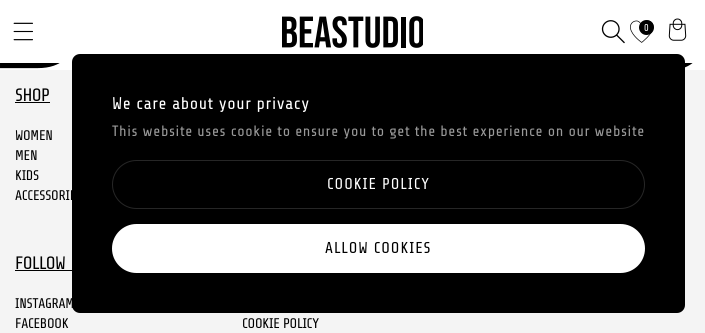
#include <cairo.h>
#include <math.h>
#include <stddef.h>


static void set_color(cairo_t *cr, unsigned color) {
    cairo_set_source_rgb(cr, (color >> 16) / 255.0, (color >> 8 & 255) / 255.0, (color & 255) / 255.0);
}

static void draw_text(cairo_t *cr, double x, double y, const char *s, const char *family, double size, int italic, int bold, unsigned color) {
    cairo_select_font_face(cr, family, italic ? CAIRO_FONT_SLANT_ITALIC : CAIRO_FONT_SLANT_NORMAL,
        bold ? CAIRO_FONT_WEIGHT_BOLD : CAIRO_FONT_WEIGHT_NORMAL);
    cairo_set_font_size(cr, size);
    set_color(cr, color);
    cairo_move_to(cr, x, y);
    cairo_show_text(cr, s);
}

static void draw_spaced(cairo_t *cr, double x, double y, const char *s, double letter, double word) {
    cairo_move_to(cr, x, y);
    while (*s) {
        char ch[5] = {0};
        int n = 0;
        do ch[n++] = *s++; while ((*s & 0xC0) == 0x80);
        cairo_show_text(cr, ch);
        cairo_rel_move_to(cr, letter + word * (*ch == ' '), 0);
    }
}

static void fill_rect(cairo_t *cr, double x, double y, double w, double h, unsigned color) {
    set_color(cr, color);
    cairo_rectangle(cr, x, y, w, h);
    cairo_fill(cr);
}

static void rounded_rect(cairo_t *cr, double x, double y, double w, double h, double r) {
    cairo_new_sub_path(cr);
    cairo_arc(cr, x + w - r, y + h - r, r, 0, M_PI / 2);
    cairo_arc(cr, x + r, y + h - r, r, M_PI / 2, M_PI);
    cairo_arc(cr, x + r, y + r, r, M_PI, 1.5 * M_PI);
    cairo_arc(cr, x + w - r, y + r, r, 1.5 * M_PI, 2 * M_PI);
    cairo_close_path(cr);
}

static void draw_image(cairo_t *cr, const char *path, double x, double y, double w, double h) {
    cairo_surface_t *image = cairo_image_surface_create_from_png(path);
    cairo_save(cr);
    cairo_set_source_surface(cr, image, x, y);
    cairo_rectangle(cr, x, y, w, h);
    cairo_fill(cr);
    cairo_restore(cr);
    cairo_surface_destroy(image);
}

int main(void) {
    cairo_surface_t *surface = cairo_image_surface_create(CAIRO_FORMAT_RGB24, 705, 333);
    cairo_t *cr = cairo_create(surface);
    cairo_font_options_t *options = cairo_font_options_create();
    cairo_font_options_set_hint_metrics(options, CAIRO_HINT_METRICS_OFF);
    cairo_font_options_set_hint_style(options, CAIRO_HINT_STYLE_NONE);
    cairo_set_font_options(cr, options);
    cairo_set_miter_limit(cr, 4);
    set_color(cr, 0xFFFFFF);
    cairo_paint(cr);
    draw_image(cr, "assets/img1.png", 13, 22, 20, 19);
    draw_image(cr, "assets/img2.png", 282, 16, 141, 32);
    draw_image(cr, "assets/img3.png", 601, 20, 24, 24);
    draw_image(cr, "assets/img4.png", 630, 20, 24, 23);
    set_color(cr, 0x000000);
    cairo_arc(cr, 646.5, 27.5, 7.5, 0, 2 * M_PI);
    cairo_fill(cr);
    draw_text(cr, 644, 31, "0", "Share Tech", 10, 0, 0, 0xFFFFFF);
    draw_image(cr, "assets/img5.png", 668, 18, 19, 23);
    draw_image(cr, "assets/img6.png", 0, 63, 693, 6);
    fill_rect(cr, 0, 70, 705, 263, 0xF4F4F4);
    cairo_set_font_size(cr, 18);
    set_color(cr, 0x000000);
    draw_spaced(cr, 15, 101, "SHOP", -0.5, 0);
    fill_rect(cr, 15, 102, 35, 1, 0x000000);
    cairo_set_font_size(cr, 14);
    draw_spaced(cr, 15, 140, "WOMEN", -0.25, 0);
    draw_spaced(cr, 15, 160, "MEN", -0.25, 0);
    draw_spaced(cr, 15, 180, "KIDS", -0.25, 0);
    draw_spaced(cr, 15, 200, "ACCESSORIE", -0.25, 0);
    cairo_set_font_size(cr, 18);
    draw_spaced(cr, 15, 269, "FOLLOW", -0.5, 0);
    fill_rect(cr, 15, 270, 57, 1, 0x000000);
    cairo_set_font_size(cr, 14);
    draw_spaced(cr, 15, 308, "INSTAGRAM", -0.25, 0);
    draw_spaced(cr, 15, 328, "FACEBOOK", -0.25, 0);
    draw_spaced(cr, 242, 328, "COOKIE POLICY", -0.25, 0);
    rounded_rect(cr, 72, 54, 613, 259, 8);
    cairo_fill(cr);
    cairo_set_font_size(cr, 17);
    set_color(cr, 0xFFFFFF);
    draw_spaced(cr, 112, 109, "We care about your privacy", 0.63, 0);
    cairo_set_font_size(cr, 15);
    set_color(cr, 0x999999);
    draw_spaced(cr, 112, 136, "This website uses cookie to ensure you to get the best experience on our website", 0.63, 0);
    rounded_rect(cr, 112.5, 160.5, 532, 48, 24);
    set_color(cr, 0x262626);
    cairo_set_line_width(cr, 1);
    cairo_stroke(cr);
    cairo_set_font_size(cr, 15.75);
    set_color(cr, 0xFFFFFF);
    draw_spaced(cr, 327, 189, "COOKIE POLICY", 1, 0);
    rounded_rect(cr, 112, 224, 533, 49, 24.5);
    cairo_fill(cr);
    set_color(cr, 0x000000);
    draw_spaced(cr, 325, 253, "ALLOW COOKIES", 1, 0);
    cairo_surface_write_to_png(surface, "output.png");
    cairo_font_options_destroy(options);
    cairo_destroy(cr);
    cairo_surface_destroy(surface);
    return 0;
}
